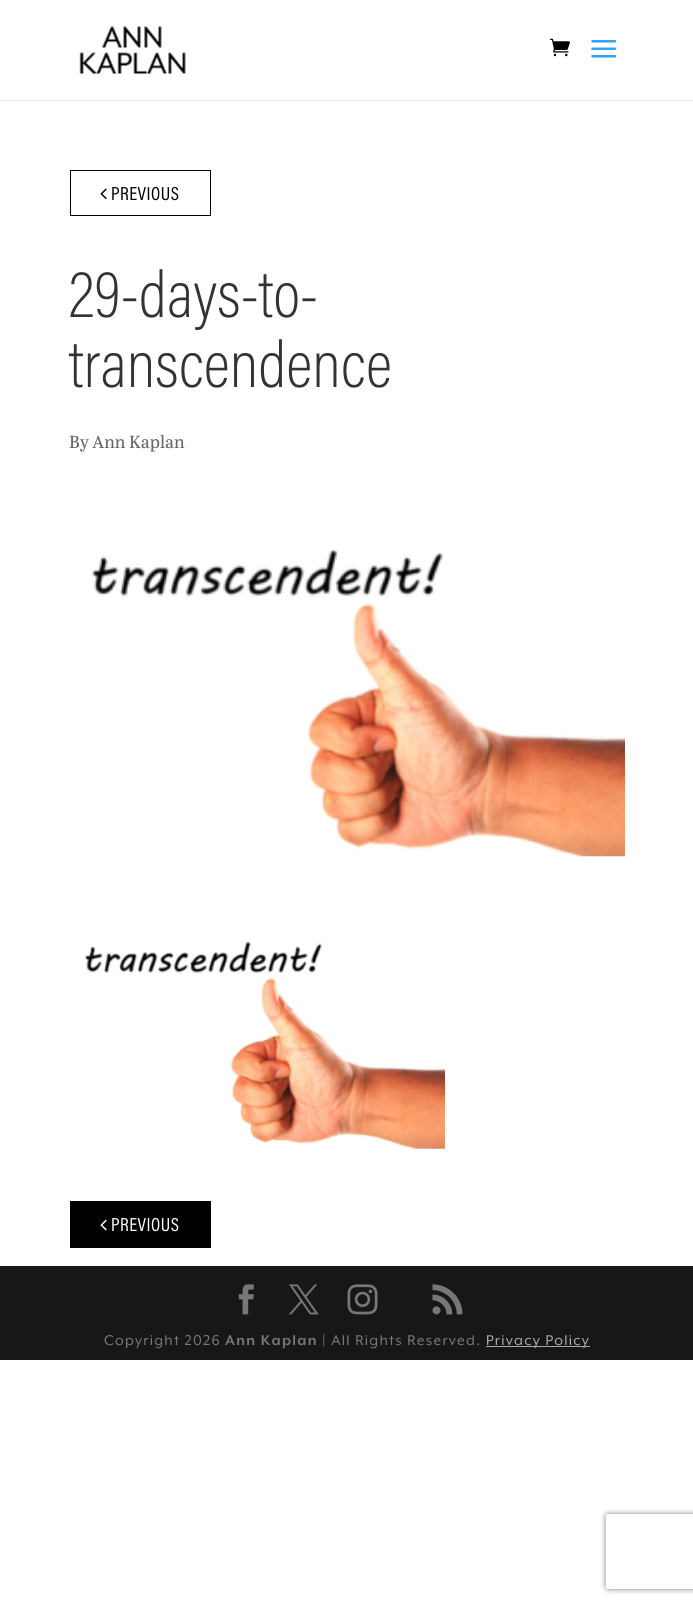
#include <cairo.h>
#include <math.h>
#include <stddef.h>


static void set_color(cairo_t *cr, unsigned color) {
    cairo_set_source_rgb(cr, (color >> 16) / 255.0, (color >> 8 & 255) / 255.0, (color & 255) / 255.0);
}

static void draw_text(cairo_t *cr, double x, double y, const char *s, const char *family, double size, int italic, int bold, unsigned color) {
    cairo_select_font_face(cr, family, italic ? CAIRO_FONT_SLANT_ITALIC : CAIRO_FONT_SLANT_NORMAL,
        bold ? CAIRO_FONT_WEIGHT_BOLD : CAIRO_FONT_WEIGHT_NORMAL);
    cairo_set_font_size(cr, size);
    set_color(cr, color);
    cairo_move_to(cr, x, y);
    cairo_show_text(cr, s);
}

static void draw_spaced(cairo_t *cr, double x, double y, const char *s, double letter, double word) {
    cairo_move_to(cr, x, y);
    while (*s) {
        char ch[5] = {0};
        int n = 0;
        do ch[n++] = *s++; while ((*s & 0xC0) == 0x80);
        cairo_show_text(cr, ch);
        cairo_rel_move_to(cr, letter + word * (*ch == ' '), 0);
    }
}

static void fill_rect(cairo_t *cr, double x, double y, double w, double h, unsigned color) {
    set_color(cr, color);
    cairo_rectangle(cr, x, y, w, h);
    cairo_fill(cr);
}

static void rounded_rect(cairo_t *cr, double x, double y, double w, double h, double r) {
    cairo_new_sub_path(cr);
    cairo_arc(cr, x + w - r, y + h - r, r, 0, M_PI / 2);
    cairo_arc(cr, x + r, y + h - r, r, M_PI / 2, M_PI);
    cairo_arc(cr, x + r, y + r, r, M_PI, 1.5 * M_PI);
    cairo_arc(cr, x + w - r, y + r, r, 1.5 * M_PI, 2 * M_PI);
    cairo_close_path(cr);
}

static void draw_shadow(cairo_t *cr, double x, double y, double w, double h, double r, double blur, double alpha) {
    cairo_push_group_with_content(cr, CAIRO_CONTENT_ALPHA);
    cairo_set_operator(cr, CAIRO_OPERATOR_SOURCE);
    for (int i = 15; i >= -15 && fmin(w, h) + blur * i / 3 > 0; i -= 2) {
        double e = blur * i / 6;
        cairo_set_source_rgba(cr, 0, 0, 0, alpha * erfc((i - 1) / 8.5) / 2);
        rounded_rect(cr, x - e, y - e, w + 2 * e, h + 2 * e, fmax(0, fmin(r + e + blur * .6, fmin(w, h) / 2 + e)));
        cairo_fill(cr);
    }
    cairo_pattern_t *soft = cairo_pop_group(cr);
    cairo_mask(cr, soft);
    cairo_pattern_destroy(soft);
}

static void draw_image(cairo_t *cr, const char *path, double x, double y, double w, double h) {
    cairo_surface_t *image = cairo_image_surface_create_from_png(path);
    cairo_save(cr);
    cairo_set_source_surface(cr, image, x, y);
    cairo_rectangle(cr, x, y, w, h);
    cairo_fill(cr);
    cairo_restore(cr);
    cairo_surface_destroy(image);
}

int main(void) {
    cairo_surface_t *surface = cairo_image_surface_create(CAIRO_FORMAT_RGB24, 693, 1606);
    cairo_t *cr = cairo_create(surface);
    cairo_font_options_t *options = cairo_font_options_create();
    cairo_font_options_set_hint_metrics(options, CAIRO_HINT_METRICS_OFF);
    cairo_font_options_set_hint_style(options, CAIRO_HINT_STYLE_NONE);
    cairo_set_font_options(cr, options);
    cairo_set_miter_limit(cr, 4);
    set_color(cr, 0xFFFFFF);
    cairo_paint(cr);
    set_color(cr, 0xE6E6E6);
    cairo_new_path(cr);
    cairo_move_to(cr, 0, 100);
    cairo_line_to(cr, 0, 101);
    cairo_line_to(cr, 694, 101);
    cairo_line_to(cr, 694, 1);
    cairo_line_to(cr, 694, 100);
    cairo_close_path(cr);
    cairo_fill(cr);
    draw_image(cr, "assets/img1.png", 79, 26, 107, 48);
    draw_image(cr, "assets/img2.png", 550, 38, 20, 19);
    draw_image(cr, "assets/img3.png", 591, 40, 26, 18);
    cairo_rectangle(cr, 70.5, 170.5, 140, 45);
    set_color(cr, 0x000000);
    cairo_set_line_width(cr, 1);
    cairo_stroke(cr);
    draw_image(cr, "assets/img4.png", 100, 188, 7, 12);
    cairo_select_font_face(cr, "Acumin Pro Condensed", CAIRO_FONT_SLANT_NORMAL, CAIRO_FONT_WEIGHT_NORMAL);
    cairo_set_font_size(cr, 19);
    draw_spaced(cr, 111, 200, "PREVIOUS", 0.5, 0);
    draw_text(cr, 69, 317, "29-days-to-", "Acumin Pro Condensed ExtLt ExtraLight", 67, 0, 0, 0x333333);
    draw_text(cr, 69, 387, "transcendence", "Acumin Pro Condensed ExtLt ExtraLight", 67, 0, 0, 0x333333);
    draw_text(cr, 69, 448, "By Ann Kaplan", "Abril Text", 17.5, 0, 0, 0x666666);
    draw_image(cr, "assets/img5.png", 91, 549, 534, 308);
    draw_image(cr, "assets/img6.png", 84, 941, 361, 208);
    fill_rect(cr, 70, 1201, 141, 47, 0x000000);
    draw_image(cr, "assets/img7.png", 100, 1219, 7, 12);
    cairo_select_font_face(cr, "Acumin Pro Condensed", CAIRO_FONT_SLANT_NORMAL, CAIRO_FONT_WEIGHT_NORMAL);
    cairo_set_font_size(cr, 19);
    set_color(cr, 0xFFFFFF);
    draw_spaced(cr, 111, 1231, "PREVIOUS", 0.5, 0);
    fill_rect(cr, 0, 1266, 693, 94, 0x171717);
    draw_image(cr, "assets/img8.png", 238, 1284, 16, 31);
    draw_image(cr, "assets/img9.png", 289, 1284, 30, 31);
    draw_image(cr, "assets/img10.png", 347, 1284, 31, 31);
    draw_image(cr, "assets/img11.png", 432, 1284, 31, 31);
    cairo_select_font_face(cr, "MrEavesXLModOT", CAIRO_FONT_SLANT_NORMAL, CAIRO_FONT_WEIGHT_NORMAL);
    cairo_set_font_size(cr, 16.25);
    set_color(cr, 0x777777);
    draw_spaced(cr, 104, 1345, "Copyright 2026", 1.25, 0);
    cairo_select_font_face(cr, "MrEavesXLModOT", CAIRO_FONT_SLANT_NORMAL, CAIRO_FONT_WEIGHT_BOLD);
    draw_spaced(cr, 225, 1345, "Ann Kaplan", 1.25, 0);
    cairo_select_font_face(cr, "MrEavesXLModOT", CAIRO_FONT_SLANT_NORMAL, CAIRO_FONT_WEIGHT_NORMAL);
    draw_spaced(cr, 322, 1345, "| All Rights Reserved.", 1.25, 0);
    fill_rect(cr, 486, 1346, 104, 1, 0xAAAAAA);
    draw_spaced(cr, 486, 1345, "Privacy Policy", 1.25, 0);
    cairo_save(cr);
    cairo_set_fill_rule(cr, CAIRO_FILL_RULE_EVEN_ODD);
    cairo_new_path(cr);
    cairo_move_to(cr, 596, 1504);
    cairo_line_to(cr, 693, 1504);
    cairo_line_to(cr, 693, 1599);
    cairo_line_to(cr, 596, 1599);
    cairo_close_path(cr);
    cairo_move_to(cr, 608.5, 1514);
    cairo_line_to(cr, 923.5, 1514);
    cairo_curve_to(cr, 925, 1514, 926, 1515, 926, 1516.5);
    cairo_line_to(cr, 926, 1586.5);
    cairo_curve_to(cr, 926, 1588, 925, 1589, 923.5, 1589);
    cairo_line_to(cr, 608.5, 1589);
    cairo_curve_to(cr, 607, 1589, 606, 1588, 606, 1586.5);
    cairo_line_to(cr, 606, 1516.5);
    cairo_curve_to(cr, 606, 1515, 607, 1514, 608.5, 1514);
    cairo_close_path(cr);
    cairo_clip(cr);
    set_color(cr, 0x808080);
    draw_shadow(cr, 606, 1514, 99, 75, 2.5, 3, 1);
    cairo_restore(cr);
    cairo_surface_write_to_png(surface, "output.png");
    cairo_font_options_destroy(options);
    cairo_destroy(cr);
    cairo_surface_destroy(surface);
    return 0;
}
